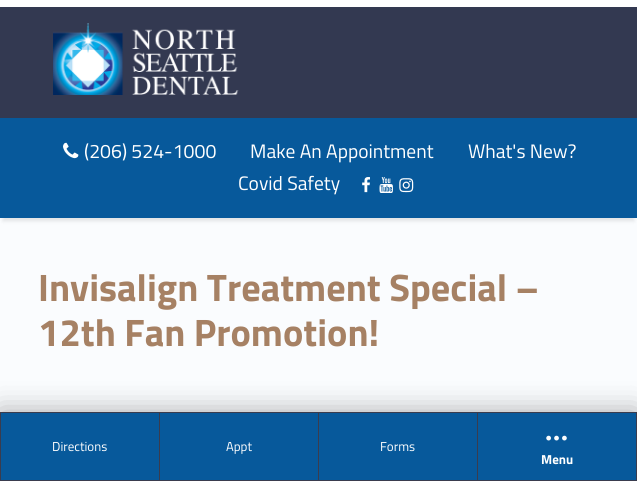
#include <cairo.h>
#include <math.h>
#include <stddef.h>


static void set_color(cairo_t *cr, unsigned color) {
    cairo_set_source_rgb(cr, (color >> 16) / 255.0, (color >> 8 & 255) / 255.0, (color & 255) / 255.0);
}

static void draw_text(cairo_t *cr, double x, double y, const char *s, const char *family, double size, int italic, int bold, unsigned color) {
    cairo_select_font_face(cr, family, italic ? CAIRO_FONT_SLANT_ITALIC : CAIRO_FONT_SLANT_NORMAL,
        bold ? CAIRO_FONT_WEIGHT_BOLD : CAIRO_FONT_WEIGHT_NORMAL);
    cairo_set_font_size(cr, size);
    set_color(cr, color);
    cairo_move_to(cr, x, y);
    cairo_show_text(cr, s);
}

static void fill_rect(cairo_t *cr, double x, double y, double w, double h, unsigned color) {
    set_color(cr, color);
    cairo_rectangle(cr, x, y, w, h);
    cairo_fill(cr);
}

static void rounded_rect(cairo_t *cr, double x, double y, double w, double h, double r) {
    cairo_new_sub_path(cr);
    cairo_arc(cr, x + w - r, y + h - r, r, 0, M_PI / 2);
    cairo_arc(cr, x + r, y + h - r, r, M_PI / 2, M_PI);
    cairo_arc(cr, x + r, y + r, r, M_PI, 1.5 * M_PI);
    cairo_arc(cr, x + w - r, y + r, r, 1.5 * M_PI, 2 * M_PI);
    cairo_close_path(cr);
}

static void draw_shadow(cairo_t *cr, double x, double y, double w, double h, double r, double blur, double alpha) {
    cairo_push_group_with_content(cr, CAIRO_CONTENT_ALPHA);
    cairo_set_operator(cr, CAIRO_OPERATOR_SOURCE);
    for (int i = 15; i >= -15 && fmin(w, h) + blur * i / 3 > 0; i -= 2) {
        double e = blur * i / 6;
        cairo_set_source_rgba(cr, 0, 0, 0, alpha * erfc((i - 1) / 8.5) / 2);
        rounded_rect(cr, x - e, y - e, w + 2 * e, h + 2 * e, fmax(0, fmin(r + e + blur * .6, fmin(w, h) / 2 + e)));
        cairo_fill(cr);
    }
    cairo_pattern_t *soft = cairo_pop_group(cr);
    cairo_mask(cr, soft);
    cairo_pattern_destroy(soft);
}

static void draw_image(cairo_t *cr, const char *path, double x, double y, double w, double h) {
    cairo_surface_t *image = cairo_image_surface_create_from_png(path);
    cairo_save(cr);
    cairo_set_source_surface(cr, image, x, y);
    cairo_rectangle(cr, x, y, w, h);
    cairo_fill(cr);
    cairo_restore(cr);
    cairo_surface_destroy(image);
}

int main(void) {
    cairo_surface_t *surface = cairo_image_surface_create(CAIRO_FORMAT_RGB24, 637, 481);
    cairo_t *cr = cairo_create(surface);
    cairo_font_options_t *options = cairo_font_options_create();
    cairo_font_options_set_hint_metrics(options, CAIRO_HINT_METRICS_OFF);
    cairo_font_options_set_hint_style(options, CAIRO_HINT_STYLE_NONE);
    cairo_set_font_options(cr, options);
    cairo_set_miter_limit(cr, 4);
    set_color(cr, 0xFAFCFE);
    cairo_paint(cr);
    set_color(cr, 0x000000);
    draw_shadow(cr, 3, 9, 631, 212, 0, 2, 0.1);
    fill_rect(cr, 0, 7, 637, 111, 0x333951);
    fill_rect(cr, 0, 0, 637, 7, 0xFFFFFF);
    fill_rect(cr, 0, 118, 637, 100, 0x07599B);
    draw_image(cr, "assets/img1.png", 63, 142, 16, 17);
    draw_text(cr, 84, 158, "(206) 524-1000", "Titillium Web", 19.5, 0, 0, 0xFFFFFF);
    draw_text(cr, 250, 158, "Make An Appointment", "Titillium Web", 19.5, 0, 0, 0xFFFFFF);
    draw_text(cr, 468, 158, "What's New?", "Titillium Web", 19.5, 0, 0, 0xFFFFFF);
    draw_text(cr, 238, 190, "Covid Safety", "Titillium Web", 19.5, 0, 0, 0xFFFFFF);
    draw_image(cr, "assets/img2.png", 362, 177, 8, 16);
    draw_image(cr, "assets/img3.png", 379, 177, 14, 16);
    draw_image(cr, "assets/img4.png", 399, 178, 15, 15);
    draw_image(cr, "assets/img5.png", 53, 23, 186, 72);
    set_color(cr, 0x000000);
    draw_shadow(cr, 0, 412, 637, 69, 0, 14.5, 0.33);
    fill_rect(cr, 1, 413, 635, 67, 0x07599B);
    fill_rect(cr, 477, 412, 160, 1, 0x3A3C4E);
    fill_rect(cr, 636, 412, 1, 69, 0x3A3C4E);
    fill_rect(cr, 477, 480, 160, 1, 0x3A3C4E);
    fill_rect(cr, 477, 412, 1, 69, 0x3A3C4E);
    fill_rect(cr, 318, 412, 160, 1, 0x3A3C4E);
    fill_rect(cr, 318, 480, 160, 1, 0x3A3C4E);
    fill_rect(cr, 318, 412, 1, 69, 0x3A3C4E);
    fill_rect(cr, 159, 412, 160, 1, 0x3A3C4E);
    fill_rect(cr, 159, 480, 160, 1, 0x3A3C4E);
    fill_rect(cr, 159, 412, 1, 69, 0x3A3C4E);
    fill_rect(cr, 0, 412, 160, 1, 0x3A3C4E);
    fill_rect(cr, 0, 480, 160, 1, 0x3A3C4E);
    fill_rect(cr, 0, 412, 1, 69, 0x3A3C4E);
    draw_text(cr, 52, 451, "Directions", "Titillium Web", 13, 0, 0, 0xFFFFFF);
    draw_text(cr, 226, 451, "Appt", "Titillium Web", 13, 0, 0, 0xFFFFFF);
    draw_text(cr, 380, 451, "Forms", "Titillium Web", 13, 0, 0, 0xFFFFFF);
    draw_image(cr, "assets/img6.png", 546, 435, 21, 6);
    draw_text(cr, 541, 464, "Menu", "Titillium Web", 13, 0, 1, 0xFFFFFF);
    draw_text(cr, 38, 301, "Invisalign Treatment Special –", "Titillium Web", 38.25, 0, 1, 0xA68164);
    draw_text(cr, 38, 346, "12th Fan Promotion!", "Titillium Web", 38.25, 0, 1, 0xA68164);
    cairo_surface_write_to_png(surface, "output.png");
    cairo_font_options_destroy(options);
    cairo_destroy(cr);
    cairo_surface_destroy(surface);
    return 0;
}
